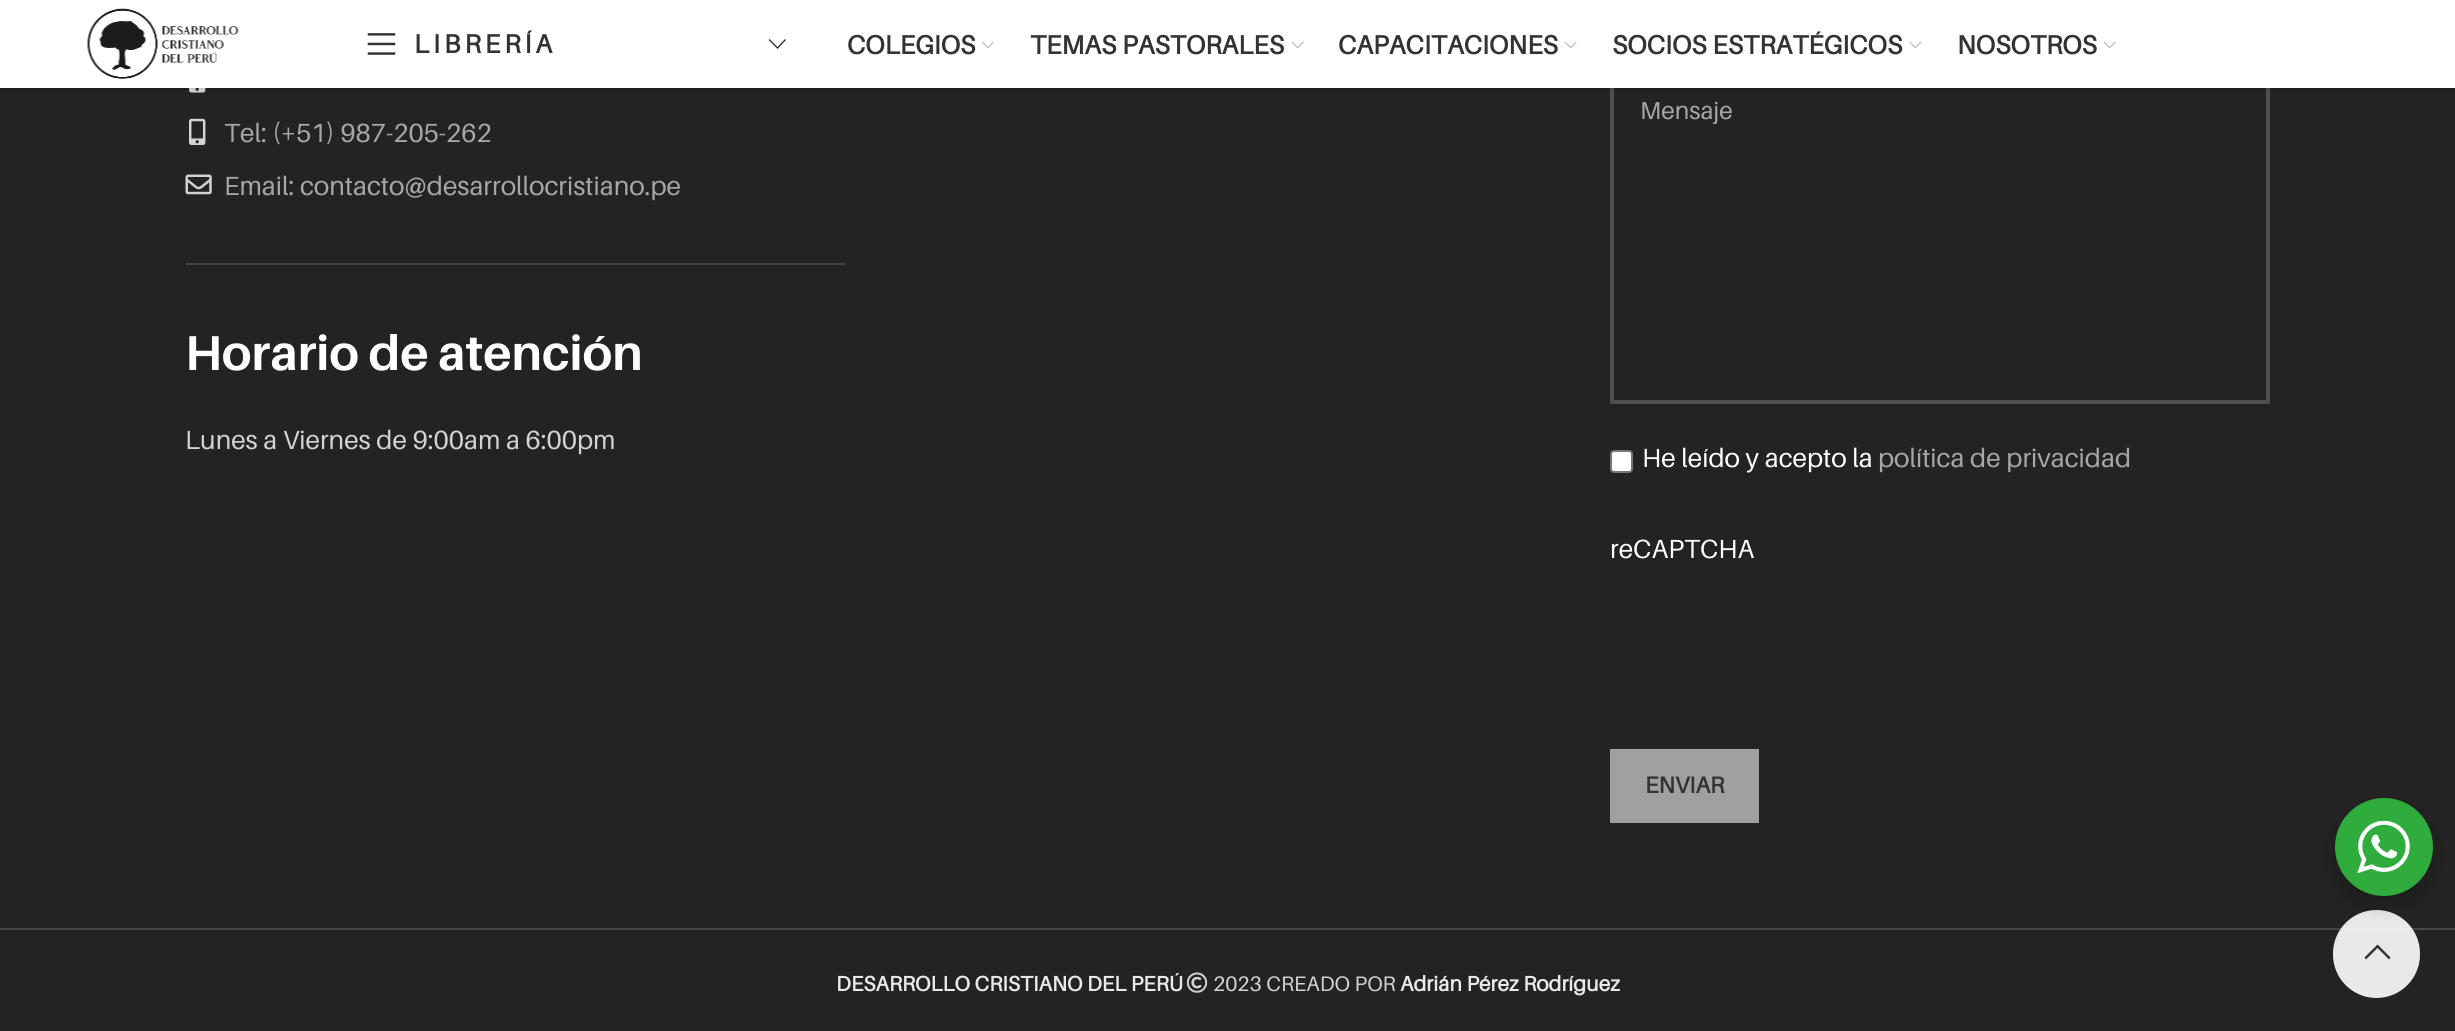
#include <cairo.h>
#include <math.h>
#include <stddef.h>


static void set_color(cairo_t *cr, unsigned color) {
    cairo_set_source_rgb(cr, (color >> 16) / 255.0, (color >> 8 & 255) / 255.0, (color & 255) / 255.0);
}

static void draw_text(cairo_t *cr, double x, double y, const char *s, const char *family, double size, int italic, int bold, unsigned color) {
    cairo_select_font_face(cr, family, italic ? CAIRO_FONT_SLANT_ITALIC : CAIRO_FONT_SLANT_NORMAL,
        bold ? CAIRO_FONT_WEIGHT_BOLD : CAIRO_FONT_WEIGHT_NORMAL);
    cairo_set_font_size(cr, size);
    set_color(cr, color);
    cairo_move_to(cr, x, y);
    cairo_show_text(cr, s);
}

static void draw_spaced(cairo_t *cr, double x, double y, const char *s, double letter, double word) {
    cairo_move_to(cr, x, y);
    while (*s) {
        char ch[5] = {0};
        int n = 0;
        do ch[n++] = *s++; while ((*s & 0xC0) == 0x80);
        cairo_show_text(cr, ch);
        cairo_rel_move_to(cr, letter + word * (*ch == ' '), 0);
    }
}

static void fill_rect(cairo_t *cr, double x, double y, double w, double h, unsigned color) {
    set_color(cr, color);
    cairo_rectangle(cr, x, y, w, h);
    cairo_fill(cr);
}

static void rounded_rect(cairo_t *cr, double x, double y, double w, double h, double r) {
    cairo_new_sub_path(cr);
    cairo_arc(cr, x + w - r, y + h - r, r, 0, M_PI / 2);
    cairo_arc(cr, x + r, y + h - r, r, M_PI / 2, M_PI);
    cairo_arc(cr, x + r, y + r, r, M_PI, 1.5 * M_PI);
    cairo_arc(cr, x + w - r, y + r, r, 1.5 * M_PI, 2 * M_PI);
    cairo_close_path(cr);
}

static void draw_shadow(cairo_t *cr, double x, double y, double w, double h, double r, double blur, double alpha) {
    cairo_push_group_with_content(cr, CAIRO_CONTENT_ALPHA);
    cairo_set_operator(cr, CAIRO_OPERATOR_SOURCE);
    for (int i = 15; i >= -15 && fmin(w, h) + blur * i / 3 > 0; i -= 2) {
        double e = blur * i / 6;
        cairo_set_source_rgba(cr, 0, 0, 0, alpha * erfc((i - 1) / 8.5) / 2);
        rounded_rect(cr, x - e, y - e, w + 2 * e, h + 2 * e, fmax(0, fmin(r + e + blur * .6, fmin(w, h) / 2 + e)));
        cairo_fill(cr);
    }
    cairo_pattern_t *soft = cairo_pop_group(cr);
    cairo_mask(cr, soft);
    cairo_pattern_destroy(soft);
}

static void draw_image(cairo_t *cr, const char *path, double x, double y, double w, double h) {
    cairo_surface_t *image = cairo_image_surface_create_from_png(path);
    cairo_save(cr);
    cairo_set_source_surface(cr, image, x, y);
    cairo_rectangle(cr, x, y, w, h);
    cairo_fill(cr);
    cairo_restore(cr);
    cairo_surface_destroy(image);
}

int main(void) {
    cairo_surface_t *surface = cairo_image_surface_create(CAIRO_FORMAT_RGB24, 2455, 1031);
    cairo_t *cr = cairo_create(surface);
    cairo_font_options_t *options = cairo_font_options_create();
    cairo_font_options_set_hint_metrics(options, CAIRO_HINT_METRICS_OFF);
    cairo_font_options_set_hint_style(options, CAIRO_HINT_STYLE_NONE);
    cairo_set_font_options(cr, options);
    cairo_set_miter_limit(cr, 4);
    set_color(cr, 0x232323);
    cairo_paint(cr);
    draw_image(cr, "assets/img6.png", 189, 88, 17, 5);
    cairo_rectangle(cr, 1612, 74, 656, 328);
    set_color(cr, 0x4F4F4F);
    cairo_set_line_width(cr, 4);
    cairo_stroke(cr);
    set_color(cr, 0x000000);
    draw_shadow(cr, 0, 2, 2455, 87, 0, 2.5, 0.1);
    fill_rect(cr, 0, 0, 2455, 88, 0xFFFFFF);
    draw_image(cr, "assets/img1.png", 87, 8, 152, 71);
    draw_image(cr, "assets/img2.png", 367, 33, 29, 22);
    cairo_select_font_face(cr, "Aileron", CAIRO_FONT_SLANT_NORMAL, CAIRO_FONT_WEIGHT_BOLD);
    cairo_set_font_size(cr, 26.25);
    set_color(cr, 0x333333);
    draw_spaced(cr, 414, 53, "LIBRERÍA", 4, 0);
    cairo_new_path(cr);
    cairo_move_to(cr, 785, 39);
    cairo_line_to(cr, 777.5, 47);
    cairo_line_to(cr, 769.5, 39);
    cairo_line_to(cr, 768.5, 40);
    cairo_line_to(cr, 777.5, 49);
    cairo_line_to(cr, 786, 40);
    cairo_close_path(cr);
    cairo_fill(cr);
    draw_text(cr, 847, 54, "COLEGIOS", "Aileron", 26.25, 0, 1, 0x333333);
    draw_image(cr, "assets/img3.png", 982, 41, 12, 8);
    draw_text(cr, 1030, 54, "TEMAS PASTORALES", "Aileron", 26.25, 0, 1, 0x333333);
    draw_image(cr, "assets/img4.png", 1291, 41, 13, 8);
    draw_text(cr, 1338, 54, "CAPACITACIONES", "Aileron", 26.25, 0, 1, 0x333333);
    draw_image(cr, "assets/img4.png", 1564, 41, 13, 8);
    draw_text(cr, 1612, 54, "SOCIOS ESTRATÉGICOS", "Aileron", 26.25, 0, 1, 0x333333);
    draw_image(cr, "assets/img5.png", 1909, 41, 13, 8);
    draw_text(cr, 1957, 54, "NOSOTROS", "Aileron", 26.25, 0, 1, 0x333333);
    draw_image(cr, "assets/img4.png", 2103, 41, 13, 8);
    fill_rect(cr, 186, 263, 659, 2, 0x444444);
    draw_image(cr, "assets/img7.png", 189, 118, 17, 27);
    draw_text(cr, 224, 142, "Tel: (+51) 987-205-262", "Aileron", 26.25, 0, 0, 0xA7A7A7);
    draw_image(cr, "assets/img8.png", 185, 174, 27, 21);
    draw_text(cr, 224, 195, "Email: contacto@desarrollocristiano.pe", "Aileron", 26.25, 0, 0, 0xA7A7A7);
    draw_text(cr, 185, 370, "Horario de atención", "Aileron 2", 49, 0, 1, 0xFFFFFF);
    draw_text(cr, 185, 449, "Lunes a Viernes de 9:00am a 6:00pm", "Aileron", 26.25, 0, 0, 0xD3D3D3);
    draw_text(cr, 1640, 119, "Mensaje", "Aileron", 24.5, 0, 0, 0xA7A7A7);
    set_color(cr, 0xFFFFFF);
    rounded_rect(cr, 1611, 451, 21, 21, 3);
    cairo_fill_preserve(cr);
    set_color(cr, 0x767676);
    cairo_set_line_width(cr, 2);
    cairo_stroke(cr);
    draw_text(cr, 1642, 467, "He leído y acepto la", "Aileron", 26.25, 0, 0, 0xFFFFFF);
    draw_text(cr, 1878, 467, "política de privacidad", "Aileron", 26.25, 0, 0, 0xA7A7A7);
    draw_text(cr, 1610, 558, "reCAPTCHA", "Aileron", 26.25, 0, 0, 0xFFFFFF);
    fill_rect(cr, 1610, 749, 149, 74, 0xA0A0A0);
    draw_text(cr, 1645, 793, "ENVIAR", "Aileron", 23, 0, 1, 0x333333);
    fill_rect(cr, 0, 928, 2455, 2, 0x444444);
    draw_text(cr, 836, 991, "DESARROLLO CRISTIANO DEL PERÚ", "Aileron", 21, 0, 1, 0xE9E9E9);
    draw_image(cr, "assets/img9.png", 1186, 972, 22, 21);
    draw_text(cr, 1213, 991, "2023 CREADO POR", "Aileron", 21, 0, 0, 0xD3D3D3);
    draw_text(cr, 1400, 991, "Adrián Pérez Rodríguez", "Aileron", 21, 0, 1, 0xE9E9E9);
    cairo_set_source_rgba(cr, 1, 1, 1, 0.9);
    rounded_rect(cr, 2333, 910, 87, 88, 43.5);
    cairo_fill(cr);
    set_color(cr, 0x000000);
    draw_shadow(cr, 2331, 805, 105, 105, 52.5, 7, 0.14);
    set_color(cr, 0x30AC3C);
    cairo_arc(cr, 2384, 847, 49, 0, 2 * M_PI);
    cairo_fill(cr);
    draw_image(cr, "assets/img10.png", 2357, 821, 53, 52);
    set_color(cr, 0x333333);
    cairo_new_path(cr);
    cairo_move_to(cr, 2389, 959.5);
    cairo_line_to(cr, 2390.5, 957.5);
    cairo_line_to(cr, 2377.5, 944.5);
    cairo_line_to(cr, 2364.5, 957.5);
    cairo_line_to(cr, 2366, 959.5);
    cairo_line_to(cr, 2377.5, 948);
    cairo_close_path(cr);
    cairo_fill(cr);
    cairo_surface_write_to_png(surface, "output.png");
    cairo_font_options_destroy(options);
    cairo_destroy(cr);
    cairo_surface_destroy(surface);
    return 0;
}
